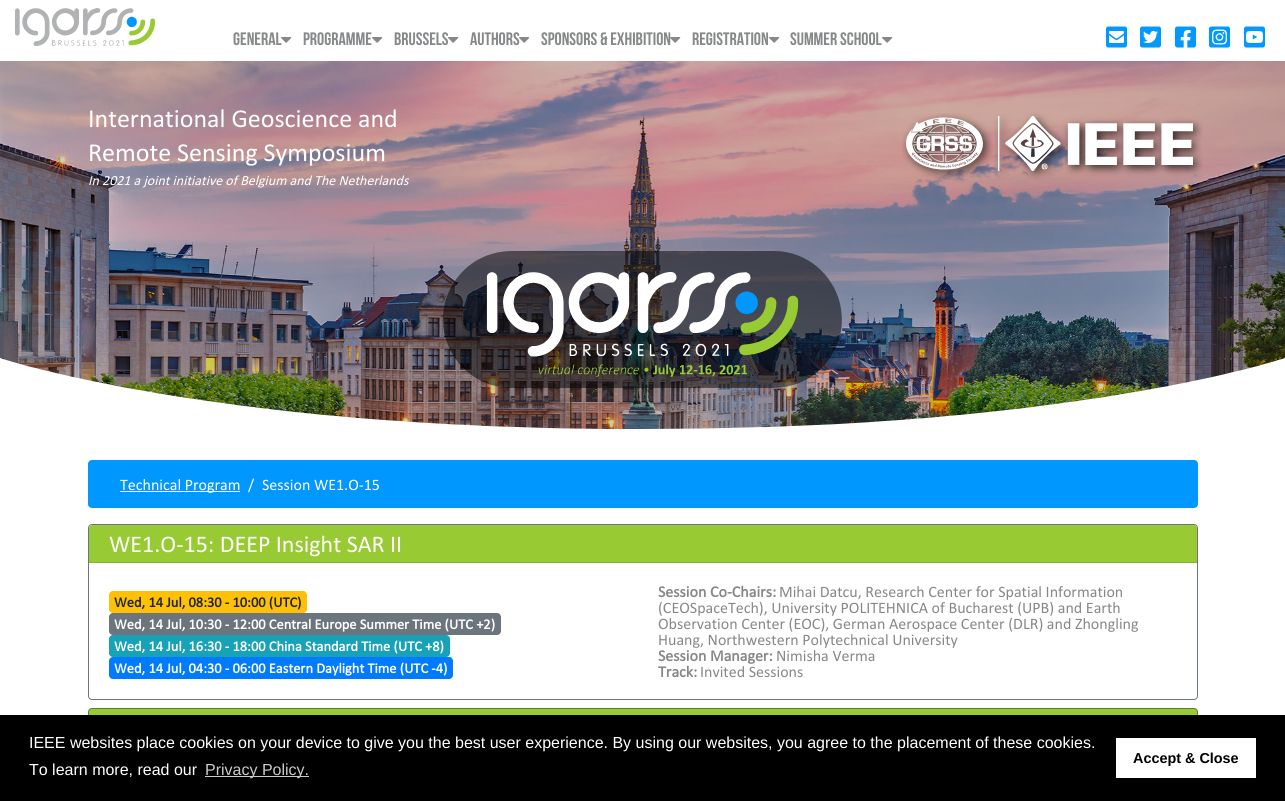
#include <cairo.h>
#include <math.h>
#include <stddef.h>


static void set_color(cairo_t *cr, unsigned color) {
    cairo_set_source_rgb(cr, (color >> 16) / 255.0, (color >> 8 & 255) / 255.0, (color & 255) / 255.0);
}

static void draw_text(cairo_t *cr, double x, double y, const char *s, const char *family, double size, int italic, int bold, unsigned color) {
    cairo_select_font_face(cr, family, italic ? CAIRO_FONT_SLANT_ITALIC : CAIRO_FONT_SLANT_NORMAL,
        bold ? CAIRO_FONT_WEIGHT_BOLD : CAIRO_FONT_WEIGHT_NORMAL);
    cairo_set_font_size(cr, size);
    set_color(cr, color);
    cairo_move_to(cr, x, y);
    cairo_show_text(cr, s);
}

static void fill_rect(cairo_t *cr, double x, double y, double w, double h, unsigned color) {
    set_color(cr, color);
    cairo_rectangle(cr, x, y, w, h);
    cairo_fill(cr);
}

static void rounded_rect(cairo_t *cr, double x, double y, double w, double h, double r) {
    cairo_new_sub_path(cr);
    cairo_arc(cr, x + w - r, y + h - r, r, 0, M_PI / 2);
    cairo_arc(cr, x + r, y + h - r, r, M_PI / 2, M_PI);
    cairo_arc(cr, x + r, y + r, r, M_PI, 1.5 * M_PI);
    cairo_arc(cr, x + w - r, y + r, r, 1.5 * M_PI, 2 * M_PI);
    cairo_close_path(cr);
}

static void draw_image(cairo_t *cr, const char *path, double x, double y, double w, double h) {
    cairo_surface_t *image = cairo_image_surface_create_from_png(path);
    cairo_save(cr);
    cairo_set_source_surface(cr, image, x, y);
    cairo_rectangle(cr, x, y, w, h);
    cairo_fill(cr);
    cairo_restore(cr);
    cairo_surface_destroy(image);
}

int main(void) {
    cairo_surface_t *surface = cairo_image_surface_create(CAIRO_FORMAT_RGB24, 1285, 801);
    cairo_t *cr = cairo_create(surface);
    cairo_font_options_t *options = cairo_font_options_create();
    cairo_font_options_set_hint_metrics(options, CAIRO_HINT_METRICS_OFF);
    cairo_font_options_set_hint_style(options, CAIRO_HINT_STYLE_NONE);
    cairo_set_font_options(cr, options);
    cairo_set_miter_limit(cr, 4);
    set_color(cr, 0xFFFFFF);
    cairo_paint(cr);
    draw_image(cr, "assets/img1.png", 15, 8, 140, 38);
    draw_text(cr, 233, 45, "GENERAL", "Bebas Neue", 18, 0, 0, 0x868889);
    draw_image(cr, "assets/img2.png", 281, 37, 11, 6);
    draw_text(cr, 303, 45, "PROGRAMME", "Bebas Neue", 18, 0, 0, 0x868889);
    draw_image(cr, "assets/img2.png", 372, 37, 11, 6);
    draw_text(cr, 394, 45, "BRUSSELS", "Bebas Neue", 18, 0, 0, 0x868889);
    draw_image(cr, "assets/img2.png", 448, 37, 11, 6);
    draw_text(cr, 470, 45, "AUTHORS", "Bebas Neue", 18, 0, 0, 0x868889);
    draw_image(cr, "assets/img2.png", 519, 37, 11, 6);
    draw_text(cr, 541, 45, "SPONSORS & EXHIBITION", "Bebas Neue", 18, 0, 0, 0x868889);
    draw_image(cr, "assets/img3.png", 670, 37, 11, 6);
    draw_text(cr, 692, 45, "REGISTRATION", "Bebas Neue", 18, 0, 0, 0x868889);
    draw_image(cr, "assets/img2.png", 769, 37, 11, 6);
    draw_text(cr, 790, 45, "SUMMER SCHOOL", "Bebas Neue", 18, 0, 0, 0x868889);
    draw_image(cr, "assets/img2.png", 882, 37, 11, 6);
    draw_image(cr, "assets/img4.png", 1106, 26, 21, 22);
    draw_image(cr, "assets/img5.png", 1140, 26, 21, 22);
    draw_image(cr, "assets/img6.png", 1175, 26, 21, 22);
    draw_image(cr, "assets/img7.png", 1209, 26, 21, 22);
    draw_image(cr, "assets/img8.png", 1244, 26, 21, 22);
    draw_image(cr, "assets/img9.png", 0, 61, 1285, 368);
    draw_text(cr, 88, 127, "International Geoscience and", "Calibri", 26, 0, 0, 0xFFFFFF);
    draw_text(cr, 88, 161, "Remote Sensing Symposium", "Calibri", 26, 0, 0, 0xFFFFFF);
    draw_text(cr, 88, 185, "In 2021 a joint initiative of Belgium and The Netherlands", "Calibri", 14, 1, 0, 0xFFFFFF);
    draw_image(cr, "assets/img10.png", 902, 113, 91, 67);
    draw_image(cr, "assets/img11.png", 994, 113, 209, 67);
    draw_image(cr, "assets/img12.png", 443, 251, 399, 137);
    draw_image(cr, "assets/img13.png", 0, 358, 1285, 92);
    set_color(cr, 0x0098FF);
    rounded_rect(cr, 88, 460, 1110, 48, 4);
    cairo_fill(cr);
    fill_rect(cr, 120, 491, 120, 1, 0xFFFFFF);
    draw_text(cr, 120, 490, "Technical Program", "Calibri", 16, 0, 0, 0xFFFFFF);
    draw_text(cr, 248, 490, "/", "Calibri", 16, 0, 0, 0xFFFFFF);
    draw_text(cr, 262, 490, "Session WE1.O-15", "Calibri", 16, 0, 0, 0xFFFFFF);
    rounded_rect(cr, 88.5, 524.5, 1109, 175, 3.5);
    set_color(cr, 0x6C757D);
    cairo_set_line_width(cr, 1);
    cairo_stroke(cr);
    set_color(cr, 0x98CB33);
    cairo_new_path(cr);
    cairo_move_to(cr, 92, 525);
    cairo_line_to(cr, 1194, 525);
    cairo_curve_to(cr, 1195.5, 525, 1197, 526.5, 1197, 528);
    cairo_line_to(cr, 1197, 563);
    cairo_line_to(cr, 89, 563);
    cairo_line_to(cr, 89, 528);
    cairo_curve_to(cr, 89, 526.5, 90.5, 525, 92, 525);
    cairo_close_path(cr);
    cairo_fill(cr);
    fill_rect(cr, 89, 562, 1108, 1, 0x85B22D);
    draw_text(cr, 109, 552, "WE1.O-15: DEEP Insight SAR II", "Calibri", 24, 0, 0, 0xFFFFFF);
    set_color(cr, 0xFFC107);
    rounded_rect(cr, 109, 591, 198, 22, 4);
    cairo_fill(cr);
    draw_text(cr, 114, 607, "Wed, 14 Jul, 08:30 - 10:00 (UTC)", "Calibri", 14.4, 0, 1, 0x212529);
    set_color(cr, 0x6C757D);
    rounded_rect(cr, 109, 613, 392, 22, 4);
    cairo_fill(cr);
    draw_text(cr, 114, 629, "Wed, 14 Jul, 10:30 - 12:00 Central Europe Summer Time (UTC +2)", "Calibri", 14.4, 0, 1, 0xFFFFFF);
    set_color(cr, 0x17A2B8);
    rounded_rect(cr, 109, 635, 341, 22, 4);
    cairo_fill(cr);
    draw_text(cr, 114, 651, "Wed, 14 Jul, 16:30 - 18:00 China Standard Time (UTC +8)", "Calibri", 14.4, 0, 1, 0xFFFFFF);
    set_color(cr, 0x007BFF);
    rounded_rect(cr, 109, 657, 344, 22, 4);
    cairo_fill(cr);
    draw_text(cr, 114, 673, "Wed, 14 Jul, 04:30 - 06:00 Eastern Daylight Time (UTC -4)", "Calibri", 14.4, 0, 1, 0xFFFFFF);
    draw_text(cr, 658, 597, "Session Co-Chairs:", "Calibri", 16, 0, 1, 0x868889);
    draw_text(cr, 779, 597, "Mihai Datcu, Research Center for Spatial Information", "Calibri", 16, 0, 0, 0x868889);
    draw_text(cr, 658, 613, "(CEOSpaceTech), University POLITEHNICA of Bucharest (UPB) and Earth", "Calibri", 16, 0, 0, 0x868889);
    draw_text(cr, 658, 629, "Observation Center (EOC), German Aerospace Center (DLR) and Zhongling", "Calibri", 16, 0, 0, 0x868889);
    draw_text(cr, 658, 645, "Huang, Northwestern Polytechnical University", "Calibri", 16, 0, 0, 0x868889);
    draw_text(cr, 658, 661, "Session Manager:", "Calibri", 16, 0, 1, 0x868889);
    draw_text(cr, 776, 661, "Nimisha Verma", "Calibri", 16, 0, 0, 0x868889);
    draw_text(cr, 658, 677, "Track:", "Calibri", 16, 0, 1, 0x868889);
    draw_text(cr, 700, 677, "Invited Sessions", "Calibri", 16, 0, 0, 0x868889);
    set_color(cr, 0x98CB33);
    rounded_rect(cr, 88.5, 708.5, 1109, 59, 3.5);
    cairo_fill_preserve(cr);
    set_color(cr, 0x5B7F39);
    cairo_stroke(cr);
    fill_rect(cr, 0, 715, 1285, 86, 0x000000);
    draw_text(cr, 29, 748, "IEEE websites place cookies on your device to give you the best user experience. By using our websites, you agree to the placement of these cookies.", "Liberation Sans", 16, 0, 0, 0xFFFFFF);
    draw_text(cr, 29, 775, "To learn more, read our", "Liberation Sans", 16, 0, 0, 0xFFFFFF);
    fill_rect(cr, 205, 776, 104, 1, 0xCCCCCC);
    draw_text(cr, 205, 775, "Privacy Policy.", "Liberation Sans", 16, 0, 0, 0xCCCCCC);
    fill_rect(cr, 1116, 738, 140, 40, 0xFFFFFF);
    draw_text(cr, 1133, 763, "Accept & Close", "Liberation Sans", 14.4, 0, 1, 0x000000);
    cairo_surface_write_to_png(surface, "output.png");
    cairo_font_options_destroy(options);
    cairo_destroy(cr);
    cairo_surface_destroy(surface);
    return 0;
}
